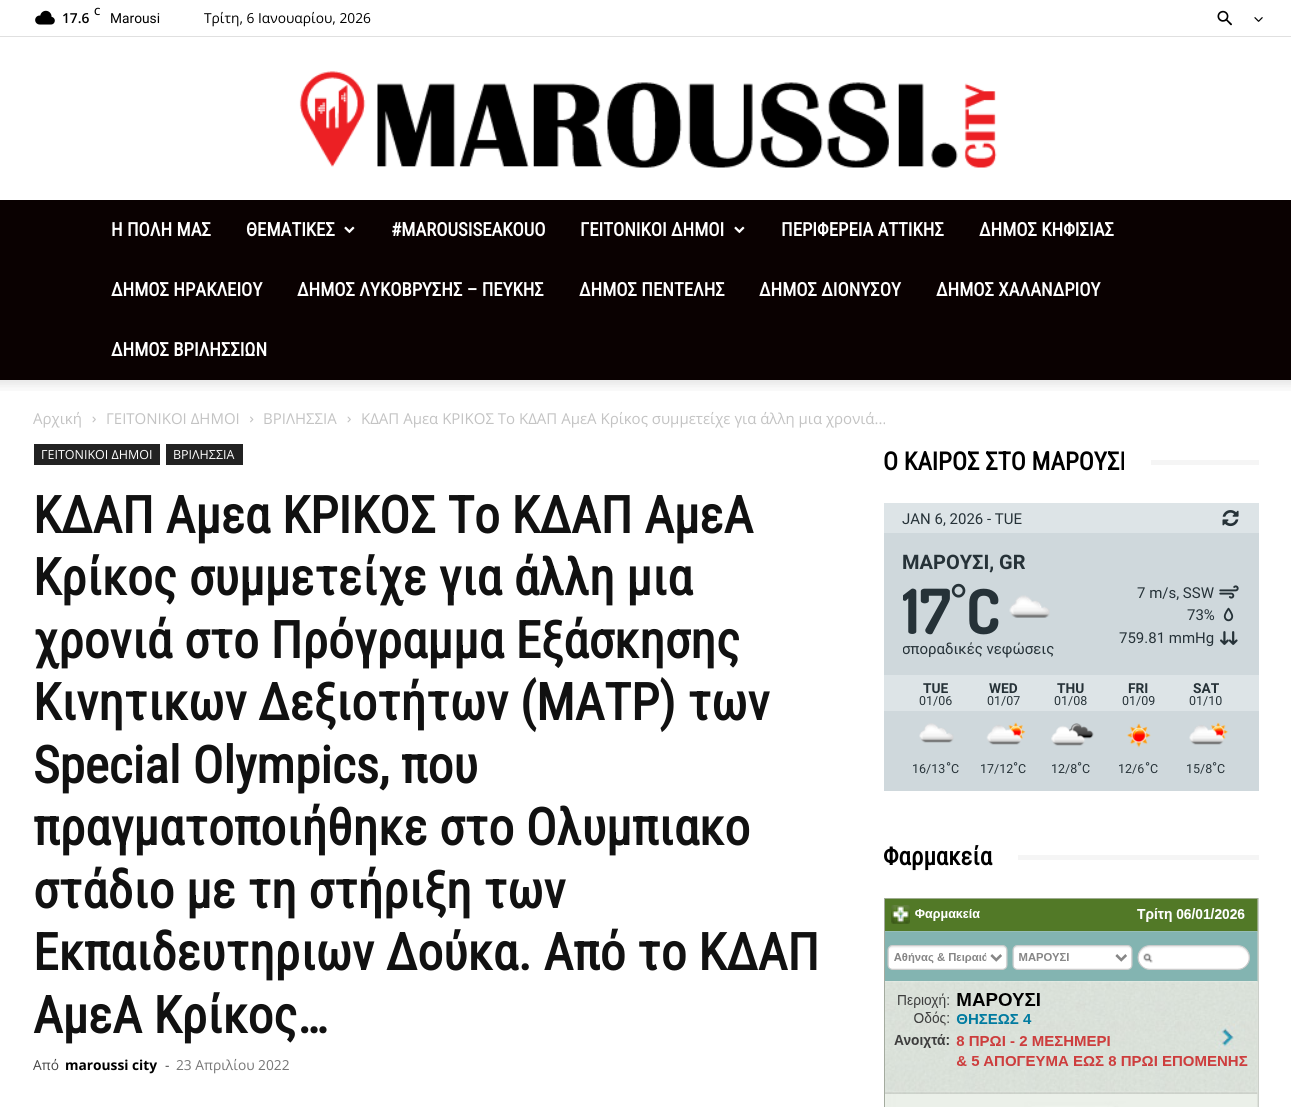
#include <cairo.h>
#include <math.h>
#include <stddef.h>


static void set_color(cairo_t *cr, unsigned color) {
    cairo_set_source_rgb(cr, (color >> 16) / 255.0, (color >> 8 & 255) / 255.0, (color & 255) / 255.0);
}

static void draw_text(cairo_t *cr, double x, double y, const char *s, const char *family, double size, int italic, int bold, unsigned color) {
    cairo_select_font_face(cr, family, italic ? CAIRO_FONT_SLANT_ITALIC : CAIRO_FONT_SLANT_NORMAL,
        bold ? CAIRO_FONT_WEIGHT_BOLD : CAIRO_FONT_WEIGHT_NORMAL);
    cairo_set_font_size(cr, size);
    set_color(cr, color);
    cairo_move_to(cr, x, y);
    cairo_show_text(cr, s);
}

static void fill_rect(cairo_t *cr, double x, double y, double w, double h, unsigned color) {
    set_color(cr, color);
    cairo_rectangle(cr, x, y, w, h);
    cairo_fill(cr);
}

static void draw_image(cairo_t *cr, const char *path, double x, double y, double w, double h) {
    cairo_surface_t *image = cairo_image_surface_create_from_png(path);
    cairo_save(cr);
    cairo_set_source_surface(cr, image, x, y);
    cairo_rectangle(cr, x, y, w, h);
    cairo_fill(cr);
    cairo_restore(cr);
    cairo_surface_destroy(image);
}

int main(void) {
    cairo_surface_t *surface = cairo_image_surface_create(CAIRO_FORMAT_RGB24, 1291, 1107);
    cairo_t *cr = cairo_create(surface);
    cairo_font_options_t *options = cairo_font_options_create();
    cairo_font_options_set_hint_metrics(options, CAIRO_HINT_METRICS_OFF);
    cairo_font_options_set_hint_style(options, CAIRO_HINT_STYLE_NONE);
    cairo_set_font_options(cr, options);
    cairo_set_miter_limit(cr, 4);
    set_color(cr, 0xFFFFFF);
    cairo_paint(cr);
    fill_rect(cr, 0, 36, 1291, 1, 0xE0E0E0);
    draw_image(cr, "assets/img1.png", 35, 10, 20, 15);
    draw_text(cr, 94, 15, "C", "Open Sans SemiBold", 10, 0, 0, 0x000000);
    draw_text(cr, 62, 23, "17.6", "Open Sans SemiBold", 13.75, 0, 0, 0x000000);
    draw_text(cr, 110, 23, "Marousi", "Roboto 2", 13.75, 0, 0, 0x000000);
    draw_text(cr, 204, 23, "Τρίτη, 6 Ιανουαρίου, 2026", "Open Sans", 13.75, 0, 0, 0x000000);
    draw_image(cr, "assets/img2.png", 1217, 10, 15, 16);
    draw_image(cr, "assets/img3.png", 1254, 17, 9, 5);
    draw_image(cr, "assets/img4.png", 299, 71, 698, 97);
    fill_rect(cr, 0, 200, 1291, 180, 0x0A0101);
    draw_text(cr, 111, 236, "Η ΠΟΛΗ ΜΑΣ", "Roboto Condensed", 18.75, 0, 1, 0xFFFFFF);
    draw_text(cr, 246, 236, "ΘΕΜΑΤΙΚΕΣ", "Roboto Condensed", 18.75, 0, 1, 0xFFFFFF);
    draw_image(cr, "assets/img5.png", 344, 226, 11, 8);
    draw_text(cr, 391, 236, "#MAROUSISEAKOUO", "Roboto Condensed", 18.75, 0, 1, 0xFFFFFF);
    draw_text(cr, 580, 236, "ΓΕΙΤΟΝΙΚΟΙ ΔΗΜΟΙ", "Roboto Condensed", 18.75, 0, 1, 0xFFFFFF);
    draw_image(cr, "assets/img5.png", 734, 226, 11, 8);
    draw_text(cr, 781, 236, "ΠΕΡΙΦΕΡΕΙΑ ΑΤΤΙΚΗΣ", "Roboto Condensed", 18.75, 0, 1, 0xFFFFFF);
    draw_text(cr, 979, 236, "ΔΗΜΟΣ ΚΗΦΙΣΙΑΣ", "Roboto Condensed", 18.75, 0, 1, 0xFFFFFF);
    draw_text(cr, 111, 296, "ΔΗΜΟΣ ΗΡΑΚΛΕΙΟΥ", "Roboto Condensed", 18.75, 0, 1, 0xFFFFFF);
    draw_text(cr, 297, 296, "ΔΗΜΟΣ ΛΥΚΟΒΡΥΣΗΣ – ΠΕΥΚΗΣ", "Roboto Condensed", 18.75, 0, 1, 0xFFFFFF);
    draw_text(cr, 579, 296, "ΔΗΜΟΣ ΠΕΝΤΕΛΗΣ", "Roboto Condensed", 18.75, 0, 1, 0xFFFFFF);
    draw_text(cr, 759, 296, "ΔΗΜΟΣ ΔΙΟΝΥΣΟΥ", "Roboto Condensed", 18.75, 0, 1, 0xFFFFFF);
    draw_text(cr, 936, 296, "ΔΗΜΟΣ ΧΑΛΑΝΔΡΙΟΥ", "Roboto Condensed", 18.75, 0, 1, 0xFFFFFF);
    draw_text(cr, 111, 356, "ΔΗΜΟΣ ΒΡΙΛΗΣΣΙΩΝ", "Roboto Condensed", 18.75, 0, 1, 0xFFFFFF);
    draw_image(cr, "assets/img6.png", 0, 380, 1291, 11);
    draw_text(cr, 33, 424, "Αρχική", "Open Sans", 15, 0, 0, 0xC3C3C3);
    draw_image(cr, "assets/img7.png", 92, 416, 4, 7);
    draw_text(cr, 106, 424, "ΓΕΙΤΟΝΙΚΟΙ ΔΗΜΟΙ", "Open Sans", 15, 0, 0, 0xC3C3C3);
    draw_image(cr, "assets/img8.png", 250, 416, 4, 7);
    draw_text(cr, 263, 424, "ΒΡΙΛΗΣΣΙΑ", "Open Sans", 15, 0, 0, 0xC3C3C3);
    draw_image(cr, "assets/img7.png", 347, 416, 4, 7);
    draw_text(cr, 361, 424, "ΚΔΑΠ Aμεα ΚΡΙΚΟΣ Το ΚΔΑΠ ΑμεΑ Κρίκος συμμετείχε για άλλη μια χρονιά...", "Open Sans", 15, 0, 0, 0xC3C3C3);
    fill_rect(cr, 34, 444, 126, 21, 0x222222);
    draw_text(cr, 41, 459, "ΓΕΙΤΟΝΙΚΟΙ ΔΗΜΟΙ", "Open Sans", 12.5, 0, 0, 0xFFFFFF);
    fill_rect(cr, 166, 444, 77, 21, 0x222222);
    draw_text(cr, 173, 459, "ΒΡΙΛΗΣΣΙΑ", "Open Sans", 12.5, 0, 0, 0xFFFFFF);
    draw_text(cr, 33, 533, "ΚΔΑΠ Aμεα ΚΡΙΚΟΣ Το ΚΔΑΠ ΑμεΑ", "Roboto Condensed", 51.25, 0, 1, 0x111111);
    draw_text(cr, 33, 595, "Κρίκος συμμετείχε για άλλη μια", "Roboto Condensed", 51.25, 0, 1, 0x111111);
    draw_text(cr, 33, 658, "χρονιά στο Πρόγραμμα Εξάσκησης", "Roboto Condensed", 51.25, 0, 1, 0x111111);
    draw_text(cr, 33, 720, "Κινητικων Δεξιοτήτων (MATP) των", "Roboto Condensed", 51.25, 0, 1, 0x111111);
    draw_text(cr, 33, 783, "Special Olympics, που", "Roboto Condensed", 51.25, 0, 1, 0x111111);
    draw_text(cr, 33, 845, "πραγματοποιήθηκε στο Ολυμπιακο", "Roboto Condensed", 51.25, 0, 1, 0x111111);
    draw_text(cr, 33, 908, "στάδιο με τη στήριξη των", "Roboto Condensed", 51.25, 0, 1, 0x111111);
    draw_text(cr, 33, 970, "Εκπαιδευτηριων Δούκα. Από το ΚΔΑΠ", "Roboto Condensed", 51.25, 0, 1, 0x111111);
    draw_text(cr, 33, 1033, "ΑμεΑ Κρίκος…", "Roboto Condensed", 51.25, 0, 1, 0x111111);
    draw_text(cr, 33, 1070, "Από", "Open Sans", 13.75, 0, 0, 0x444444);
    draw_text(cr, 65, 1070, "maroussi city", "Open Sans", 13.75, 0, 1, 0x000000);
    draw_text(cr, 165, 1070, "-", "Open Sans", 13.75, 0, 0, 0x444444);
    draw_text(cr, 176, 1070, "23 Απριλίου 2022", "Open Sans", 13.75, 0, 0, 0x767676);
    draw_text(cr, 883, 470, "Ο ΚΑΙΡΟΣ ΣΤΟ ΜΑΡΟΥΣΙ", "Roboto Condensed", 25, 0, 1, 0x000000);
    fill_rect(cr, 1151, 460, 108, 5, 0xF5F5F5);
    fill_rect(cr, 884, 533, 375, 258, 0xCFD8DC);
    fill_rect(cr, 884, 503, 375, 30, 0xDDE4E7);
    draw_text(cr, 902, 524, "JAN 6, 2026 - TUE", "Roboto", 15, 0, 0, 0x263238);
    draw_image(cr, "assets/img9.png", 1222, 510, 17, 17);
    draw_text(cr, 902, 569, "ΜΑΡΟΥΣΙ, GR", "Roboto", 20, 0, 1, 0x263238);
    cairo_save(cr);
    cairo_rectangle(cr, 903, 579, 156, 62);
    cairo_clip(cr);
    draw_text(cr, 902, 634, "17", "Dosis", 62, 0, 1, 0x263238);
    cairo_restore(cr);
    draw_text(cr, 951, 613, "°", "Dosis", 38, 0, 1, 0x263238);
    draw_text(cr, 966, 634, "C", "Dosis", 62, 0, 1, 0x263238);
    draw_image(cr, "assets/img10.png", 1009, 595, 41, 23);
    cairo_save(cr);
    cairo_rectangle(cr, 903, 573, 337, 85);
    cairo_clip(cr);
    draw_text(cr, 902, 654, "σποραδικές νεφώσεις", "Roboto", 15, 0, 0, 0x263238);
    cairo_restore(cr);
    draw_text(cr, 1137, 598, "7 m/s, SSW", "Roboto", 15, 0, 0, 0x263238);
    draw_text(cr, 1218, 603, "|", "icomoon", 22, 0, 0, 0x263238);
    draw_text(cr, 1187, 620, "73%", "Roboto", 15, 0, 0, 0x263238);
    draw_text(cr, 1218, 625, "-", "icomoon", 21, 0, 0, 0x263238);
    draw_text(cr, 1119, 643, "759.81 mmHg", "Roboto", 15, 0, 0, 0x263238);
    draw_image(cr, "assets/img11.png", 1220, 631, 9, 14);
    draw_image(cr, "assets/img12.png", 1228, 631, 10, 14);
    fill_rect(cr, 884, 675, 375, 36, 0xDDE4E7);
    draw_text(cr, 923, 693, "TUE", "Roboto", 13.75, 0, 1, 0x263238);
    draw_text(cr, 919, 705, "01/06", "Roboto", 12.5, 0, 0, 0x263238);
    draw_text(cr, 989, 693, "WED", "Roboto", 13.75, 0, 1, 0x263238);
    draw_text(cr, 987, 705, "01/07", "Roboto", 12.5, 0, 0, 0x263238);
    draw_text(cr, 1057, 693, "THU", "Roboto", 13.75, 0, 1, 0x263238);
    draw_text(cr, 1054, 705, "01/08", "Roboto", 12.5, 0, 0, 0x263238);
    draw_text(cr, 1128, 693, "FRI", "Roboto", 13.75, 0, 1, 0x263238);
    draw_text(cr, 1122, 705, "01/09", "Roboto", 12.5, 0, 0, 0x263238);
    draw_text(cr, 1193, 693, "SAT", "Roboto", 13.75, 0, 1, 0x263238);
    draw_text(cr, 1189, 705, "01/10", "Roboto", 12.5, 0, 0, 0x263238);
    draw_image(cr, "assets/img13.png", 919, 723, 35, 20);
    draw_text(cr, 912, 773, "16/13", "Roboto", 12.5, 0, 0, 0x263238);
    draw_text(cr, 946, 772, "°", "Roboto", 13.75, 0, 0, 0x263238);
    draw_text(cr, 951, 773, "C", "Roboto", 12.5, 0, 0, 0x263238);
    draw_image(cr, "assets/img14.png", 986, 722, 40, 23);
    draw_text(cr, 980, 773, "17/12", "Roboto", 12.5, 0, 0, 0x263238);
    draw_text(cr, 1013, 772, "°", "Roboto", 13.75, 0, 0, 0x263238);
    draw_text(cr, 1018, 773, "C", "Roboto", 12.5, 0, 0, 0x263238);
    draw_image(cr, "assets/img15.png", 1051, 723, 43, 23);
    draw_text(cr, 1051, 773, "12/8", "Roboto", 12.5, 0, 0, 0x263238);
    draw_text(cr, 1077, 772, "°", "Roboto", 13.75, 0, 0, 0x263238);
    draw_text(cr, 1082, 773, "C", "Roboto", 12.5, 0, 0, 0x263238);
    draw_image(cr, "assets/img16.png", 1126, 723, 25, 25);
    draw_text(cr, 1118, 773, "12/6", "Roboto", 12.5, 0, 0, 0x263238);
    draw_text(cr, 1145, 772, "°", "Roboto", 13.75, 0, 0, 0x263238);
    draw_text(cr, 1150, 773, "C", "Roboto", 12.5, 0, 0, 0x263238);
    draw_image(cr, "assets/img17.png", 1189, 722, 40, 23);
    draw_text(cr, 1186, 773, "15/8", "Roboto", 12.5, 0, 0, 0x263238);
    draw_text(cr, 1212, 772, "°", "Roboto", 13.75, 0, 0, 0x263238);
    draw_text(cr, 1217, 773, "C", "Roboto", 12.5, 0, 0, 0x263238);
    draw_text(cr, 883, 865, "Φαρμακεία", "Roboto Condensed", 25, 0, 1, 0x000000);
    fill_rect(cr, 1018, 855, 241, 5, 0xF5F5F5);
    draw_image(cr, "assets/img18.png", 884, 898, 375, 209);
    cairo_surface_write_to_png(surface, "output.png");
    cairo_font_options_destroy(options);
    cairo_destroy(cr);
    cairo_surface_destroy(surface);
    return 0;
}
